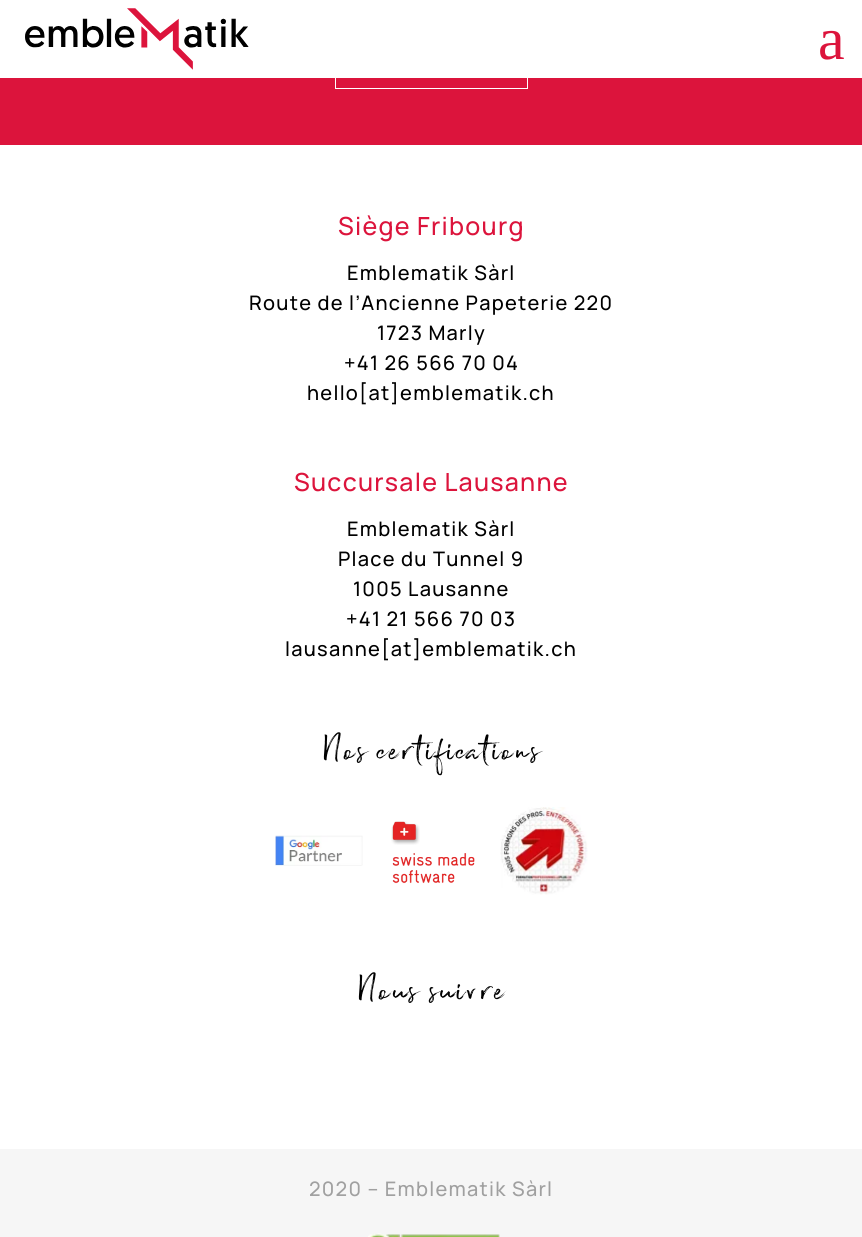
#include <cairo.h>
#include <math.h>
#include <stddef.h>


static void set_color(cairo_t *cr, unsigned color) {
    cairo_set_source_rgb(cr, (color >> 16) / 255.0, (color >> 8 & 255) / 255.0, (color & 255) / 255.0);
}

static void draw_spaced(cairo_t *cr, double x, double y, const char *s, double letter, double word) {
    cairo_move_to(cr, x, y);
    while (*s) {
        char ch[5] = {0};
        int n = 0;
        do ch[n++] = *s++; while ((*s & 0xC0) == 0x80);
        cairo_show_text(cr, ch);
        cairo_rel_move_to(cr, letter + word * (*ch == ' '), 0);
    }
}

static void fill_rect(cairo_t *cr, double x, double y, double w, double h, unsigned color) {
    set_color(cr, color);
    cairo_rectangle(cr, x, y, w, h);
    cairo_fill(cr);
}

static void draw_image(cairo_t *cr, const char *path, double x, double y, double w, double h) {
    cairo_surface_t *image = cairo_image_surface_create_from_png(path);
    cairo_save(cr);
    cairo_set_source_surface(cr, image, x, y);
    cairo_rectangle(cr, x, y, w, h);
    cairo_fill(cr);
    cairo_restore(cr);
    cairo_surface_destroy(image);
}

int main(void) {
    cairo_surface_t *surface = cairo_image_surface_create(CAIRO_FORMAT_RGB24, 862, 1237);
    cairo_t *cr = cairo_create(surface);
    cairo_font_options_t *options = cairo_font_options_create();
    cairo_font_options_set_hint_metrics(options, CAIRO_HINT_METRICS_OFF);
    cairo_font_options_set_hint_style(options, CAIRO_HINT_STYLE_NONE);
    cairo_set_font_options(cr, options);
    cairo_set_miter_limit(cr, 4);
    set_color(cr, 0xFFFFFF);
    cairo_paint(cr);
    draw_image(cr, "assets/img1.png", 25, 8, 224, 62);
    cairo_select_font_face(cr, "Liberation Serif", CAIRO_FONT_SLANT_NORMAL, CAIRO_FONT_WEIGHT_NORMAL);
    cairo_set_font_size(cr, 60);
    set_color(cr, 0xDC143C);
    draw_spaced(cr, 818, 59, "a", 1.25, 0);
    fill_rect(cr, 0, 78, 862, 67, 0xDC143C);
    cairo_rectangle(cr, 335.5, 33.5, 192, 55);
    set_color(cr, 0xFFFFFF);
    cairo_set_line_width(cr, 1);
    cairo_stroke(cr);
    cairo_select_font_face(cr, "Manrope ExtraLight", CAIRO_FONT_SLANT_NORMAL, CAIRO_FONT_WEIGHT_NORMAL);
    cairo_set_font_size(cr, 25);
    set_color(cr, 0xDC143C);
    draw_spaced(cr, 338, 235, "Siège Fribourg", 1.25, 0);
    cairo_set_font_size(cr, 20);
    set_color(cr, 0x000000);
    draw_spaced(cr, 347, 280, "Emblematik Sàrl", 1.25, 0);
    draw_spaced(cr, 249, 310, "Route de l’Ancienne Papeterie 220", 1.25, 0);
    draw_spaced(cr, 377, 340, "1723 Marly", 1.25, 0);
    draw_spaced(cr, 344, 370, "+41 26 566 70 04", 1.25, 0);
    draw_spaced(cr, 307, 400, "hello[at]emblematik.ch", 1.25, 0);
    cairo_set_font_size(cr, 25);
    set_color(cr, 0xDC143C);
    draw_spaced(cr, 294, 491, "Succursale Lausanne", 1.25, 0);
    cairo_set_font_size(cr, 20);
    set_color(cr, 0x000000);
    draw_spaced(cr, 347, 536, "Emblematik Sàrl", 1.25, 0);
    draw_spaced(cr, 338, 566, "Place du Tunnel 9", 1.25, 0);
    draw_spaced(cr, 353, 596, "1005 Lausanne", 1.25, 0);
    draw_spaced(cr, 346, 626, "+41 21 566 70 03", 1.25, 0);
    draw_spaced(cr, 285, 656, "lausanne[at]emblematik.ch", 1.25, 0);
    cairo_select_font_face(cr, "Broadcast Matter", CAIRO_FONT_SLANT_NORMAL, CAIRO_FONT_WEIGHT_NORMAL);
    cairo_set_font_size(cr, 43.75);
    draw_spaced(cr, 323, 759, "Nos certifications", 1.25, 0);
    draw_image(cr, "assets/img2.png", 275, 835, 88, 31);
    draw_image(cr, "assets/img3.png", 391, 821, 84, 63);
    draw_image(cr, "assets/img4.png", 500, 807, 88, 88);
    draw_spaced(cr, 358, 999, "Nous suivre", 1.25, 0);
    fill_rect(cr, 0, 1149, 862, 88, 0xF6F6F6);
    cairo_select_font_face(cr, "Manrope ExtraLight", CAIRO_FONT_SLANT_NORMAL, CAIRO_FONT_WEIGHT_NORMAL);
    cairo_set_font_size(cr, 20);
    set_color(cr, 0xA0A0A0);
    draw_spaced(cr, 309, 1196, "2020 – Emblematik Sàrl", 1.25, 0);
    draw_image(cr, "assets/img5.png", 368, 1233, 132, 4);
    cairo_surface_write_to_png(surface, "output.png");
    cairo_font_options_destroy(options);
    cairo_destroy(cr);
    cairo_surface_destroy(surface);
    return 0;
}
